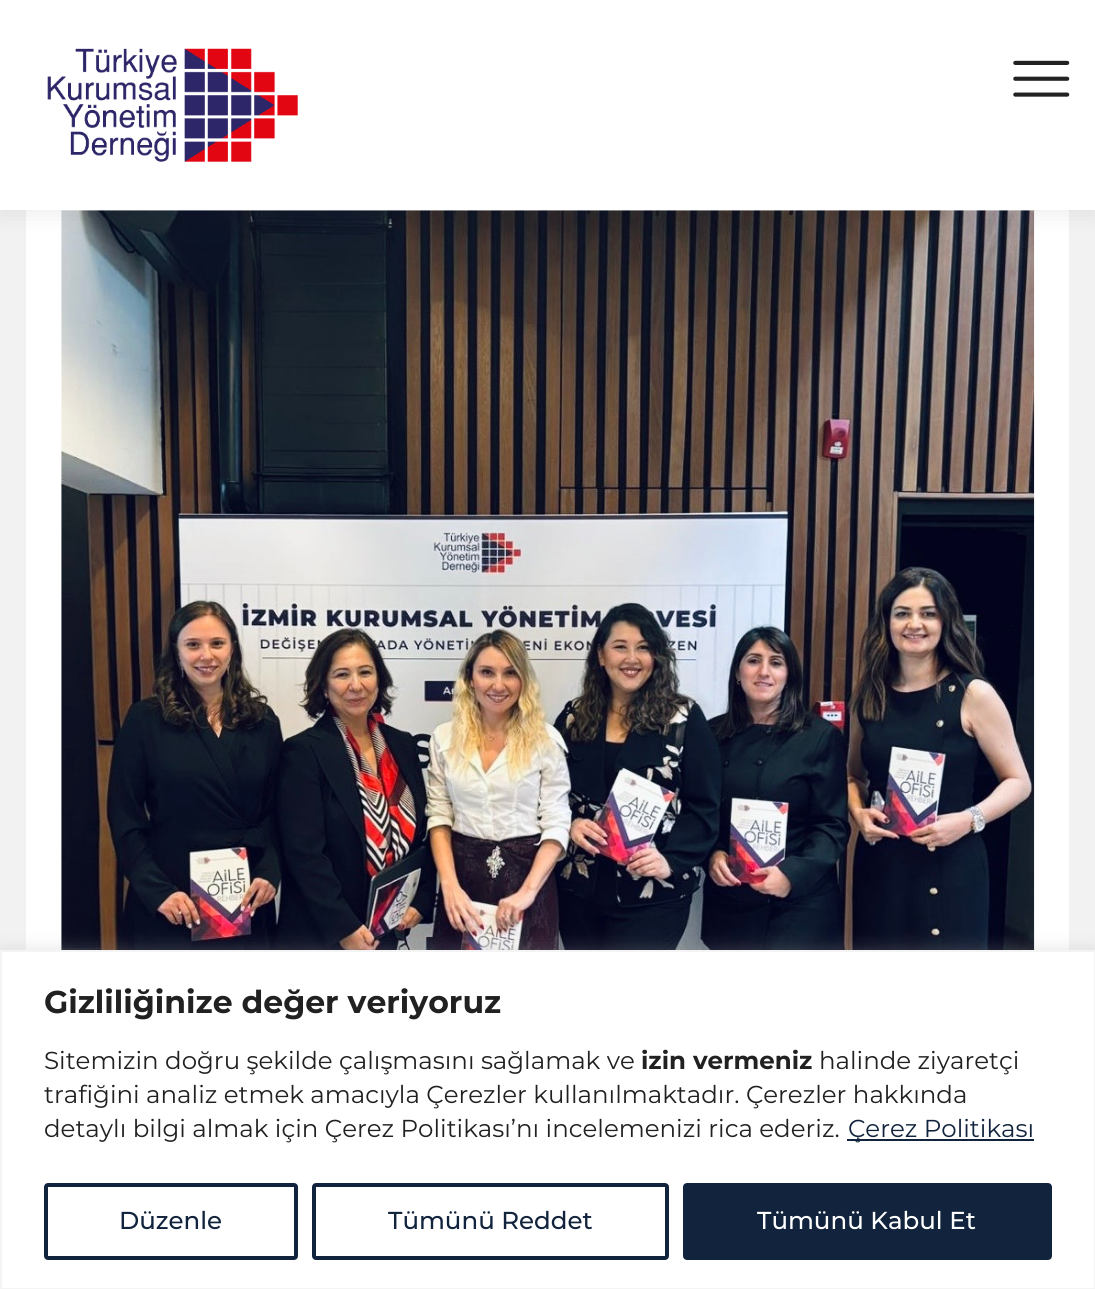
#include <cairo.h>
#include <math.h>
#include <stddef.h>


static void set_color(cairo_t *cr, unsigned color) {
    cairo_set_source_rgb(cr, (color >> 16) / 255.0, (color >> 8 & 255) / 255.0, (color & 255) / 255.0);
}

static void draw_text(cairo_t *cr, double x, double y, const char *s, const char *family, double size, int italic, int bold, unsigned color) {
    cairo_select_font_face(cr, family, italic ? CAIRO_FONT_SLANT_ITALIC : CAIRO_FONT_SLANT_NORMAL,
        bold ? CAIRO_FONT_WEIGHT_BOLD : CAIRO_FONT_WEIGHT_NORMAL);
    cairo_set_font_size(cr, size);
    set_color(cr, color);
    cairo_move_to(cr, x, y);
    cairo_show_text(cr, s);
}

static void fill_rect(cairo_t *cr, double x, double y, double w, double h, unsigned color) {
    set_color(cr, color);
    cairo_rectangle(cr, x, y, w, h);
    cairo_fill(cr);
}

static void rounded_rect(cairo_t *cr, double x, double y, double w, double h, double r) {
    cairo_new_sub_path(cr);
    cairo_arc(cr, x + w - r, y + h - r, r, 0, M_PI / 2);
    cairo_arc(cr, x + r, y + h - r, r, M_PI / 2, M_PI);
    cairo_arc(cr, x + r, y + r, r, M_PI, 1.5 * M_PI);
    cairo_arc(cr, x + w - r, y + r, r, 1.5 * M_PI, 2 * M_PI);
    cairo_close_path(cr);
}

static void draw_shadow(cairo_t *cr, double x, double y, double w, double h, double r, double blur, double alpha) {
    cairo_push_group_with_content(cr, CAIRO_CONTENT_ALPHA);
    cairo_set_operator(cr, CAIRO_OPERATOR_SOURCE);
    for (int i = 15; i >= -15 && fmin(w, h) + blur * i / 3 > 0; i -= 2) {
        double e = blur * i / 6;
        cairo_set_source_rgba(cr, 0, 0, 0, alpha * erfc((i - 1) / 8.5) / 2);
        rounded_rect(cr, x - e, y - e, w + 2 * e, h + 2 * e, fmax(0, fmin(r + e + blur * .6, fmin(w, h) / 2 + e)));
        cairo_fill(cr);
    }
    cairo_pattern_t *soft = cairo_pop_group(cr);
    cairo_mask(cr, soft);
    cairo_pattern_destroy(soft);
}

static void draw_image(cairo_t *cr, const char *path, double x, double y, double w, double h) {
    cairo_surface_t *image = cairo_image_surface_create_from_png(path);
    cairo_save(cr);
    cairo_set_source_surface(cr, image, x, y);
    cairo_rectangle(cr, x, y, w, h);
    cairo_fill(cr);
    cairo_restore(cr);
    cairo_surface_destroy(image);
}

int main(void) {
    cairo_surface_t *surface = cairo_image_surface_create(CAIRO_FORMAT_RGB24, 1095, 1289);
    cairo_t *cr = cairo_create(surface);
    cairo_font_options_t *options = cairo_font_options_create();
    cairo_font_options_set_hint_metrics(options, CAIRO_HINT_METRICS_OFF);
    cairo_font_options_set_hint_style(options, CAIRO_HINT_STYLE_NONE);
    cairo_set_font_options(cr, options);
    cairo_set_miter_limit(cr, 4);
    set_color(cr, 0xF2F2F2);
    cairo_paint(cr);
    fill_rect(cr, 26, 210, 1043, 740, 0xFFFFFF);
    draw_image(cr, "assets/img3.png", 61, 210, 974, 740);
    set_color(cr, 0x000000);
    draw_shadow(cr, 0, 0, 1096, 210, 0, 13, 0.1);
    fill_rect(cr, 0, 0, 1095, 210, 0xFFFFFF);
    draw_image(cr, "assets/img1.png", 47, 48, 251, 114);
    draw_image(cr, "assets/img2.png", 1013, 60, 57, 37);
    set_color(cr, 0xACABAB);
    draw_shadow(cr, 0, 949, 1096, 339, 0, 9, 0.3);
    set_color(cr, 0xFFFFFF);
    cairo_rectangle(cr, 1, 951, 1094, 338);
    cairo_fill_preserve(cr);
    set_color(cr, 0xF4F4F4);
    cairo_stroke(cr);
    draw_text(cr, 44, 1013, "Gizliliğinize değer veriyoruz", "Montserrat", 31.5, 0, 1, 0x212121);
    draw_text(cr, 44, 1069, "Sitemizin doğru şekilde çalışmasını sağlamak ve", "Montserrat", 24.5, 0, 0, 0x212121);
    draw_text(cr, 641, 1069, "izin vermeniz", "Montserrat", 24.5, 0, 1, 0x212121);
    draw_text(cr, 819, 1069, "halinde ziyaretçi", "Montserrat", 24.5, 0, 0, 0x212121);
    draw_text(cr, 44, 1103, "trafiğini analiz etmek amacıyla Çerezler kullanılmaktadır. Çerezler hakkında", "Montserrat", 24.5, 0, 0, 0x212121);
    draw_text(cr, 44, 1137, "detaylı bilgi almak için Çerez Politikası’nı incelemenizi rica ederiz.", "Montserrat", 24.5, 0, 0, 0x212121);
    fill_rect(cr, 847, 1139, 187, 2, 0x12243D);
    draw_text(cr, 848, 1137, "Çerez Politikası", "Montserrat", 24.5, 0, 0, 0x12243D);
    rounded_rect(cr, 46, 1185, 250, 73, 2);
    cairo_set_line_width(cr, 4);
    cairo_stroke(cr);
    draw_text(cr, 119, 1229, "Düzenle", "Montserrat Medium", 24.5, 0, 0, 0x12243D);
    rounded_rect(cr, 314, 1185, 353, 73, 2);
    cairo_stroke(cr);
    draw_text(cr, 388, 1229, "Tümünü Reddet", "Montserrat Medium", 24.5, 0, 0, 0x12243D);
    rounded_rect(cr, 685, 1185, 365, 73, 2);
    cairo_fill_preserve(cr);
    cairo_stroke(cr);
    draw_text(cr, 757, 1229, "Tümünü Kabul Et", "Montserrat Medium", 24.5, 0, 0, 0xFFFFFF);
    cairo_surface_write_to_png(surface, "output.png");
    cairo_font_options_destroy(options);
    cairo_destroy(cr);
    cairo_surface_destroy(surface);
    return 0;
}
